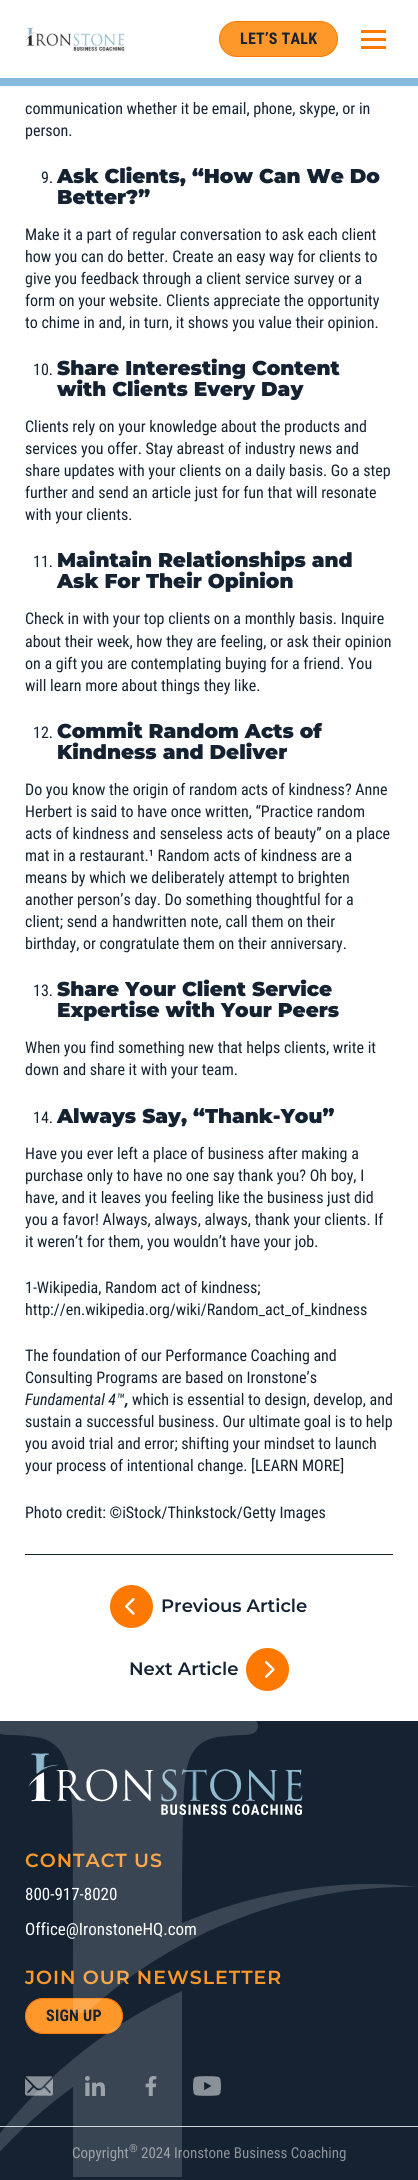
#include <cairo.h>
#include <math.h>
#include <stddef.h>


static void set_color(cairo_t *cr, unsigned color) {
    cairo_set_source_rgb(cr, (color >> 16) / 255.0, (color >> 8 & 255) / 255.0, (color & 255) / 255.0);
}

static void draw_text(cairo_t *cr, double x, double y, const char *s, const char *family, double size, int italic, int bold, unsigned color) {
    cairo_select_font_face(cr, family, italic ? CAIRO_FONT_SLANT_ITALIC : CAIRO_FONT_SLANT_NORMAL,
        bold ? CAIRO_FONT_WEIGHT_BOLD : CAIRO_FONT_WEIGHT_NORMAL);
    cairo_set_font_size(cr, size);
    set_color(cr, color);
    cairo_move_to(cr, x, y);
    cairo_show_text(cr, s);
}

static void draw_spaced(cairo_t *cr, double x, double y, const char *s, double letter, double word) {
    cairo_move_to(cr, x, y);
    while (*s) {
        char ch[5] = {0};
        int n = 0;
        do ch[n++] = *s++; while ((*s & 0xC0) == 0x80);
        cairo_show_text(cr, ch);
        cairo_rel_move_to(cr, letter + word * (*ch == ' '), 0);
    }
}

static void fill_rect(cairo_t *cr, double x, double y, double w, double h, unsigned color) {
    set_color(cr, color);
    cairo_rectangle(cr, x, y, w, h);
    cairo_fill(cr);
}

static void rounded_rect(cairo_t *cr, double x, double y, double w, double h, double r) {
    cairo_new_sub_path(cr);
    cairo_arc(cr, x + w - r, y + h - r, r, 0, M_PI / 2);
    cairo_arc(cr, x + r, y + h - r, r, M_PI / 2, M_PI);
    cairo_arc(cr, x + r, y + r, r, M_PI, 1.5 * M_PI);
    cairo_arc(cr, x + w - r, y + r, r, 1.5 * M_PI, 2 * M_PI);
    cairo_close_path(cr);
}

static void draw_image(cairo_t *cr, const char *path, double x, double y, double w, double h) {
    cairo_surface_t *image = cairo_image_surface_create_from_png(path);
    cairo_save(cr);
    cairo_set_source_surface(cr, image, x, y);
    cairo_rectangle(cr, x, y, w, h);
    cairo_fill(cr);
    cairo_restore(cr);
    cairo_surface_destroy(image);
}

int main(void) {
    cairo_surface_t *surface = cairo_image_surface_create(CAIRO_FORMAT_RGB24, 418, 2180);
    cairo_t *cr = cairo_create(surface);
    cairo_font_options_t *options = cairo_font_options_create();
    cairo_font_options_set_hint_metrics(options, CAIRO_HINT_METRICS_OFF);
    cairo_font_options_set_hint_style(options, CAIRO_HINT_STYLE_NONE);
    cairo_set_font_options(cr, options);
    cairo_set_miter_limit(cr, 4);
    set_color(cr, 0xFFFFFF);
    cairo_paint(cr);
    draw_image(cr, "assets/img1.png", 26, 27, 99, 25);
    set_color(cr, 0xFE982A);
    rounded_rect(cr, 219.5, 21.5, 118, 35, 17.5);
    cairo_fill_preserve(cr);
    set_color(cr, 0xFF7900);
    cairo_set_line_width(cr, 1);
    cairo_stroke(cr);
    cairo_select_font_face(cr, "Roboto Condensed", CAIRO_FONT_SLANT_NORMAL, CAIRO_FONT_WEIGHT_BOLD);
    cairo_set_font_size(cr, 16);
    set_color(cr, 0x142232);
    draw_spaced(cr, 240, 44, "LET’S TALK", 0.25, 0);
    fill_rect(cr, 361, 30, 25, 3, 0xFF7900);
    fill_rect(cr, 361, 38, 25, 3, 0xFF7900);
    fill_rect(cr, 361, 46, 25, 3, 0xFF7900);
    fill_rect(cr, 0, 78, 418, 8, 0x87BBDE);
    fill_rect(cr, 25, 1554, 368, 1, 0x142232);
    draw_text(cr, 25, 114, "communication whether it be email, phone, skype, or in", "Roboto Condensed", 16, 0, 0, 0x142232);
    draw_text(cr, 25, 136, "person.", "Roboto Condensed", 16, 0, 0, 0x142232);
    draw_text(cr, 41, 183, "9.", "Roboto Condensed", 16, 0, 0, 0x142232);
    draw_text(cr, 57, 183, "Ask Clients, “How Can We Do", "Montserrat Black", 20, 0, 0, 0x142232);
    draw_text(cr, 57, 204, "Better?”", "Montserrat Black", 20, 0, 0, 0x142232);
    draw_text(cr, 25, 240, "Make it a part of regular conversation to ask each client", "Roboto Condensed", 16, 0, 0, 0x142232);
    draw_text(cr, 25, 262, "how you can do better. Create an easy way for clients to", "Roboto Condensed", 16, 0, 0, 0x142232);
    draw_text(cr, 25, 284, "give you feedback through a client service survey or a", "Roboto Condensed", 16, 0, 0, 0x142232);
    draw_text(cr, 25, 306, "form on your website. Clients appreciate the opportunity", "Roboto Condensed", 16, 0, 0, 0x142232);
    draw_text(cr, 25, 328, "to chime in and, in turn, it shows you value their opinion.", "Roboto Condensed", 16, 0, 0, 0x142232);
    draw_text(cr, 33, 375, "10.", "Roboto Condensed", 16, 0, 0, 0x142232);
    draw_text(cr, 57, 375, "Share Interesting Content", "Montserrat Black", 20, 0, 0, 0x142232);
    draw_text(cr, 57, 396, "with Clients Every Day", "Montserrat Black", 20, 0, 0, 0x142232);
    draw_text(cr, 25, 432, "Clients rely on your knowledge about the products and", "Roboto Condensed", 16, 0, 0, 0x142232);
    draw_text(cr, 25, 454, "services you offer. Stay abreast of industry news and", "Roboto Condensed", 16, 0, 0, 0x142232);
    draw_text(cr, 25, 476, "share updates with your clients on a daily basis. Go a step", "Roboto Condensed", 16, 0, 0, 0x142232);
    draw_text(cr, 25, 498, "further and send an article just for fun that will resonate", "Roboto Condensed", 16, 0, 0, 0x142232);
    draw_text(cr, 25, 520, "with your clients.", "Roboto Condensed", 16, 0, 0, 0x142232);
    draw_text(cr, 33, 567, "11.", "Roboto Condensed", 16, 0, 0, 0x142232);
    draw_text(cr, 57, 567, "Maintain Relationships and", "Montserrat Black", 20, 0, 0, 0x142232);
    draw_text(cr, 57, 588, "Ask For Their Opinion", "Montserrat Black", 20, 0, 0, 0x142232);
    draw_text(cr, 25, 624, "Check in with your top clients on a monthly basis. Inquire", "Roboto Condensed", 16, 0, 0, 0x142232);
    draw_text(cr, 25, 647, "about their week, how they are feeling, or ask their opinion", "Roboto Condensed", 16, 0, 0, 0x142232);
    draw_text(cr, 25, 669, "on a gift you are contemplating buying for a friend. You", "Roboto Condensed", 16, 0, 0, 0x142232);
    draw_text(cr, 25, 691, "will learn more about things they like.", "Roboto Condensed", 16, 0, 0, 0x142232);
    draw_text(cr, 33, 738, "12.", "Roboto Condensed", 16, 0, 0, 0x142232);
    draw_text(cr, 57, 738, "Commit Random Acts of", "Montserrat Black", 20, 0, 0, 0x142232);
    draw_text(cr, 57, 759, "Kindness and Deliver", "Montserrat Black", 20, 0, 0, 0x142232);
    draw_text(cr, 25, 795, "Do you know the origin of random acts of kindness? Anne", "Roboto Condensed", 16, 0, 0, 0x142232);
    draw_text(cr, 25, 817, "Herbert is said to have once written, “Practice random", "Roboto Condensed", 16, 0, 0, 0x142232);
    draw_text(cr, 25, 839, "acts of kindness and senseless acts of beauty” on a place", "Roboto Condensed", 16, 0, 0, 0x142232);
    draw_text(cr, 25, 861, "mat in a restaurant.¹ Random acts of kindness are a", "Roboto Condensed", 16, 0, 0, 0x142232);
    draw_text(cr, 25, 883, "means by which we deliberately attempt to brighten", "Roboto Condensed", 16, 0, 0, 0x142232);
    draw_text(cr, 25, 905, "another person’s day. Do something thoughtful for a", "Roboto Condensed", 16, 0, 0, 0x142232);
    draw_text(cr, 25, 927, "client; send a handwritten note, call them on their", "Roboto Condensed", 16, 0, 0, 0x142232);
    draw_text(cr, 25, 949, "birthday, or congratulate them on their anniversary.", "Roboto Condensed", 16, 0, 0, 0x142232);
    draw_text(cr, 33, 996, "13.", "Roboto Condensed", 16, 0, 0, 0x142232);
    draw_text(cr, 57, 996, "Share Your Client Service", "Montserrat Black", 20, 0, 0, 0x142232);
    draw_text(cr, 57, 1017, "Expertise with Your Peers", "Montserrat Black", 20, 0, 0, 0x142232);
    draw_text(cr, 25, 1053, "When you find something new that helps clients, write it", "Roboto Condensed", 16, 0, 0, 0x142232);
    draw_text(cr, 25, 1075, "down and share it with your team.", "Roboto Condensed", 16, 0, 0, 0x142232);
    draw_text(cr, 33, 1123, "14.", "Roboto Condensed", 16, 0, 0, 0x142232);
    draw_text(cr, 57, 1123, "Always Say, “Thank-You”", "Montserrat Black", 20, 0, 0, 0x142232);
    draw_text(cr, 25, 1159, "Have you ever left a place of business after making a", "Roboto Condensed", 16, 0, 0, 0x142232);
    draw_text(cr, 25, 1181, "purchase only to have no one say thank you? Oh boy, I", "Roboto Condensed", 16, 0, 0, 0x142232);
    draw_text(cr, 25, 1203, "have, and it leaves you feeling like the business just did", "Roboto Condensed", 16, 0, 0, 0x142232);
    draw_text(cr, 25, 1225, "you a favor! Always, always, always, thank your clients. If", "Roboto Condensed", 16, 0, 0, 0x142232);
    draw_text(cr, 25, 1247, "it weren’t for them, you wouldn’t have your job.", "Roboto Condensed", 16, 0, 0, 0x142232);
    draw_text(cr, 25, 1293, "1-Wikipedia, Random act of kindness;", "Roboto Condensed", 16, 0, 0, 0x142232);
    draw_text(cr, 25, 1315, "http://en.wikipedia.org/wiki/Random_act_of_kindness", "Roboto Condensed", 16, 0, 0, 0x142232);
    draw_text(cr, 25, 1361, "The foundation of our Performance Coaching and", "Roboto Condensed", 16, 0, 0, 0x142232);
    draw_text(cr, 25, 1383, "Consulting Programs are based on Ironstone’s", "Roboto Condensed", 16, 0, 0, 0x142232);
    draw_text(cr, 25, 1405, "Fundamental 4™", "Roboto Condensed", 16, 1, 0, 0x142232);
    draw_text(cr, 132, 1405, "which is essential to design, develop, and", "Roboto Condensed", 16, 0, 0, 0x142232);
    draw_text(cr, 125, 1405, ",", "Roboto Condensed", 16, 1, 1, 0x142232);
    draw_text(cr, 25, 1427, "sustain a successful business. Our ultimate goal is to help", "Roboto Condensed", 16, 0, 0, 0x142232);
    draw_text(cr, 25, 1449, "you avoid trial and error; shifting your mindset to launch", "Roboto Condensed", 16, 0, 0, 0x142232);
    draw_text(cr, 25, 1471, "your process of intentional change. [LEARN MORE]", "Roboto Condensed", 16, 0, 0, 0x142232);
    draw_text(cr, 25, 1518, "Photo credit: ©iStock/Thinkstock/Getty Images", "Roboto Condensed", 16, 0, 0, 0x142232);
    set_color(cr, 0xFF7900);
    cairo_new_path(cr);
    cairo_arc(cr, 131.5, 1606.5, 21.5, 0, 2 * M_PI);
    cairo_fill(cr);
    draw_image(cr, "assets/img2.png", 125, 1598, 10, 17);
    draw_text(cr, 161, 1612, "Previous Article", "Montserrat SemiBold", 18, 0, 0, 0x142232);
    draw_text(cr, 129, 1675, "Next Article", "Montserrat SemiBold", 18, 0, 0, 0x142232);
    set_color(cr, 0xFF7900);
    cairo_new_path(cr);
    cairo_arc(cr, 267.5, 1669.5, 21.5, 0, 2 * M_PI);
    cairo_fill(cr);
    draw_image(cr, "assets/img3.png", 265, 1661, 10, 17);
    fill_rect(cr, 0, 1721, 418, 459, 0x142232);
    draw_image(cr, "assets/img4.png", 28, 1753, 275, 62);
    cairo_set_font_size(cr, 19);
    set_color(cr, 0xFE982A);
    draw_spaced(cr, 25, 1867, "CONTACT US", 1, 0);
    draw_text(cr, 25, 1900, "800-917-8020", "Roboto Condensed", 17, 0, 0, 0xFFFFFF);
    draw_text(cr, 25, 1935, "Office@IronstoneHQ.com", "Roboto Condensed", 17, 0, 0, 0xFFFFFF);
    cairo_select_font_face(cr, "Montserrat SemiBold", CAIRO_FONT_SLANT_NORMAL, CAIRO_FONT_WEIGHT_NORMAL);
    cairo_set_font_size(cr, 19);
    set_color(cr, 0xFE982A);
    draw_spaced(cr, 25, 1984, "JOIN OUR NEWSLETTER", 1, 0);
    rounded_rect(cr, 25.5, 1998.5, 97, 35, 17.5);
    cairo_fill_preserve(cr);
    set_color(cr, 0xFF7900);
    cairo_stroke(cr);
    cairo_select_font_face(cr, "Roboto Condensed", CAIRO_FONT_SLANT_NORMAL, CAIRO_FONT_WEIGHT_BOLD);
    cairo_set_font_size(cr, 16);
    set_color(cr, 0x142232);
    draw_spaced(cr, 46, 2021, "SIGN UP", 0.25, 0);
    cairo_save(cr);
    cairo_rectangle(cr, 0, 1721, 418, 456);
    cairo_clip(cr);
    cairo_set_source_rgba(cr, 1, 1, 1, 0.16);
    cairo_new_path(cr);
    cairo_move_to(cr, 370, 1884);
    cairo_curve_to(cr, 386, 1884, 402, 1885, 418, 1887);
    cairo_curve_to(cr, 294, 1885, 177, 1930, 86, 2013);
    cairo_line_to(cr, 73, 2013);
    cairo_line_to(cr, 73, 1986);
    cairo_curve_to(cr, 73, 1845, 73, 1820, 71, 1790);
    cairo_curve_to(cr, 69, 1759, 60, 1743, 41, 1738);
    cairo_curve_to(cr, 31, 1736, 19, 1735, 9, 1735);
    cairo_curve_to(cr, 1, 1735, -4, 1733, -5, 1729);
    cairo_line_to(cr, -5, 1723);
    cairo_curve_to(cr, -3, 1719, 4, 1718, 16, 1718);
    cairo_curve_to(cr, 49, 1718, 105, 1721, 131, 1721);
    cairo_curve_to(cr, 153, 1721, 205, 1718, 239, 1718);
    cairo_curve_to(cr, 251, 1718, 258, 1720, 258, 1725);
    cairo_curve_to(cr, 258, 1733, 252, 1735, 243, 1735);
    cairo_curve_to(cr, 235, 1735, 228, 1736, 217, 1737);
    cairo_curve_to(cr, 193, 1742, 186, 1758, 184, 1790);
    cairo_curve_to(cr, 183, 1815, 182, 1837, 182, 1923);
    cairo_curve_to(cr, 242, 1898, 306, 1884, 370, 1884);
    cairo_close_path(cr);
    cairo_fill(cr);
    cairo_restore(cr);
    fill_rect(cr, 0, 2126, 418, 1, 0xD0D3D6);
    draw_text(cr, 72, 2158, "Copyright", "Roboto Condensed", 15, 0, 0, 0x8A9199);
    draw_text(cr, 141, 2158, "2024 Ironstone Business Coaching", "Roboto Condensed", 15, 0, 0, 0x8A9199);
    cairo_save(cr);
    cairo_rectangle(cr, 0, 1721, 418, 456);
    cairo_clip(cr);
    cairo_set_source_rgba(cr, 1, 1, 1, 0.16);
    cairo_new_path(cr);
    cairo_move_to(cr, 267, 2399);
    cairo_curve_to(cr, 276, 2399, 281, 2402, 281, 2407);
    cairo_curve_to(cr, 281, 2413, 274, 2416, 264, 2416);
    cairo_curve_to(cr, 205, 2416, 150, 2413, 126, 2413);
    cairo_curve_to(cr, 105, 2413, 49, 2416, 14, 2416);
    cairo_curve_to(cr, 3, 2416, -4, 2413, -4, 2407);
    cairo_curve_to(cr, -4, 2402, 0, 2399, 10, 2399);
    cairo_curve_to(cr, 21, 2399, 32, 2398, 42, 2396);
    cairo_curve_to(cr, 60, 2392, 65, 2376, 68, 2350);
    cairo_curve_to(cr, 73, 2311, 73, 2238, 73, 2148);
    cairo_line_to(cr, 73, 2087);
    cairo_curve_to(cr, 16, 2128, -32, 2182, -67, 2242);
    cairo_curve_to(cr, -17, 2132, 72, 2041, 182, 1991);
    cairo_line_to(cr, 182, 2148);
    cairo_curve_to(cr, 182, 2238, 182, 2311, 186, 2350);
    cairo_curve_to(cr, 189, 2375, 195, 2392, 221, 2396);
    cairo_curve_to(cr, 234, 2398, 253, 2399, 267, 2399);
    cairo_close_path(cr);
    cairo_fill(cr);
    cairo_restore(cr);
    draw_image(cr, "assets/img5.png", 25, 2076, 28, 20);
    draw_image(cr, "assets/img6.png", 85, 2076, 20, 20);
    draw_image(cr, "assets/img7.png", 145, 2076, 12, 20);
    draw_image(cr, "assets/img8.png", 193, 2076, 28, 20);
    draw_text(cr, 129, 2152, "®", "Roboto Condensed", 11, 0, 0, 0x9CA2A9);
    cairo_surface_write_to_png(surface, "output.png");
    cairo_font_options_destroy(options);
    cairo_destroy(cr);
    cairo_surface_destroy(surface);
    return 0;
}
